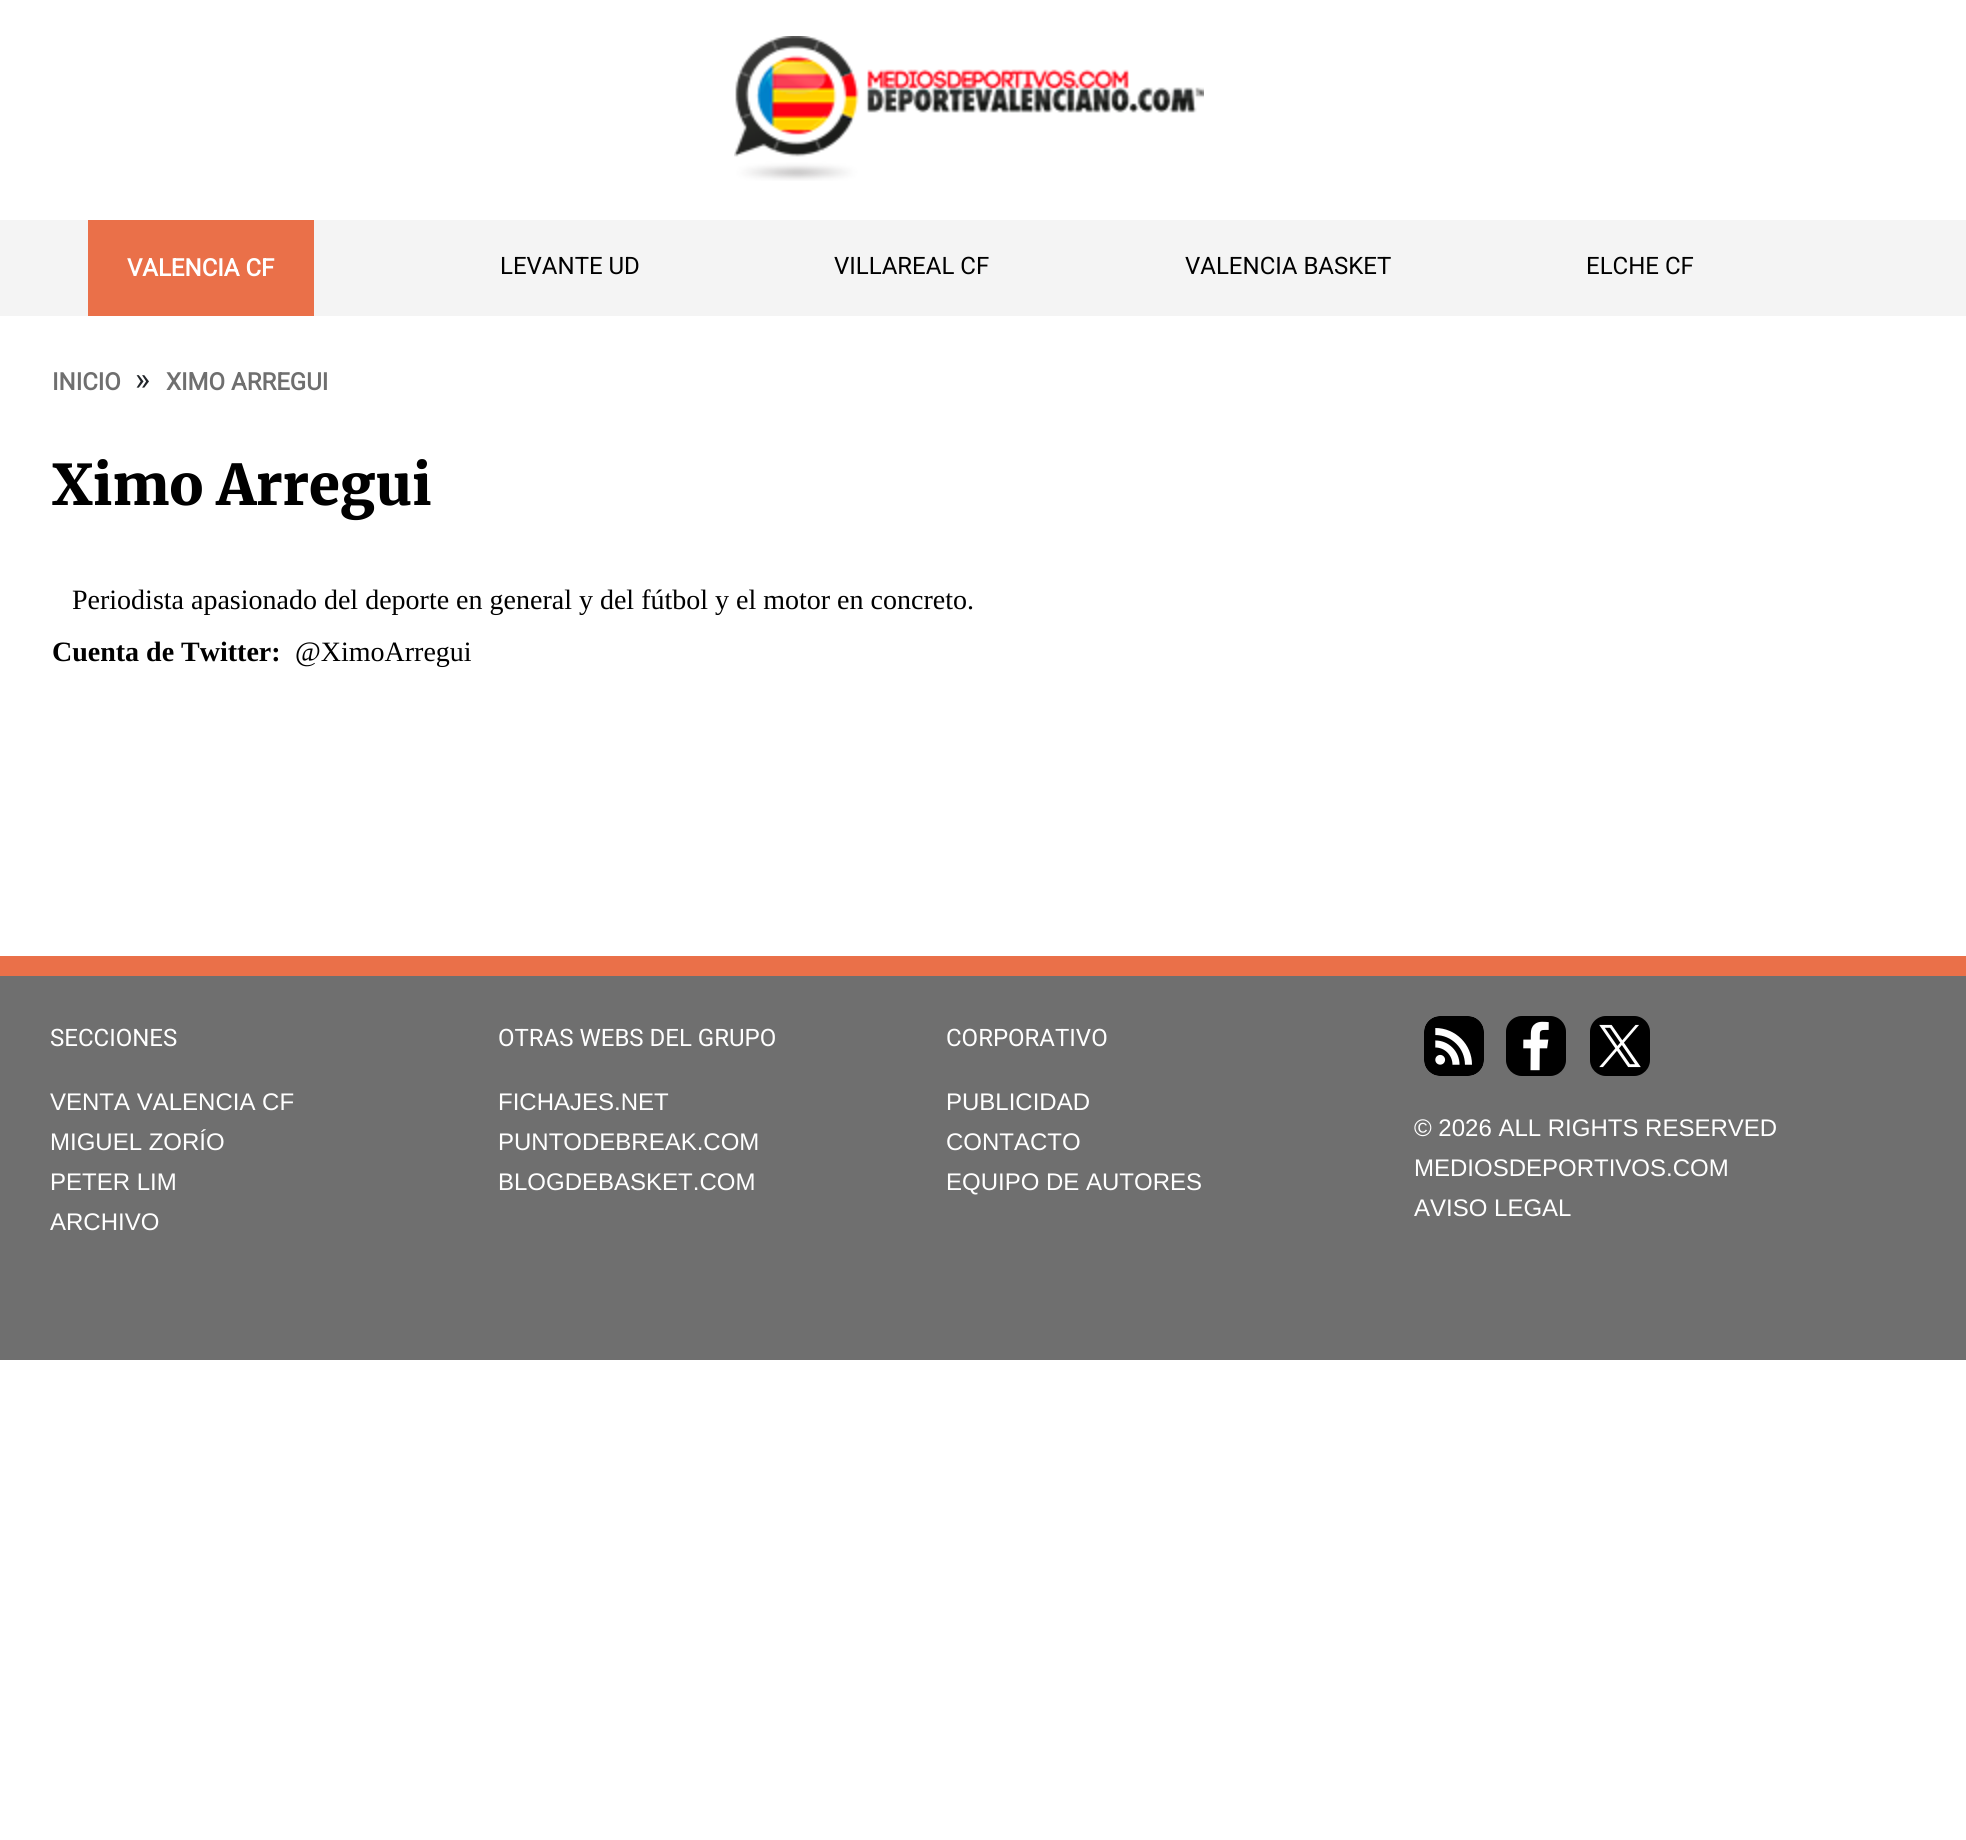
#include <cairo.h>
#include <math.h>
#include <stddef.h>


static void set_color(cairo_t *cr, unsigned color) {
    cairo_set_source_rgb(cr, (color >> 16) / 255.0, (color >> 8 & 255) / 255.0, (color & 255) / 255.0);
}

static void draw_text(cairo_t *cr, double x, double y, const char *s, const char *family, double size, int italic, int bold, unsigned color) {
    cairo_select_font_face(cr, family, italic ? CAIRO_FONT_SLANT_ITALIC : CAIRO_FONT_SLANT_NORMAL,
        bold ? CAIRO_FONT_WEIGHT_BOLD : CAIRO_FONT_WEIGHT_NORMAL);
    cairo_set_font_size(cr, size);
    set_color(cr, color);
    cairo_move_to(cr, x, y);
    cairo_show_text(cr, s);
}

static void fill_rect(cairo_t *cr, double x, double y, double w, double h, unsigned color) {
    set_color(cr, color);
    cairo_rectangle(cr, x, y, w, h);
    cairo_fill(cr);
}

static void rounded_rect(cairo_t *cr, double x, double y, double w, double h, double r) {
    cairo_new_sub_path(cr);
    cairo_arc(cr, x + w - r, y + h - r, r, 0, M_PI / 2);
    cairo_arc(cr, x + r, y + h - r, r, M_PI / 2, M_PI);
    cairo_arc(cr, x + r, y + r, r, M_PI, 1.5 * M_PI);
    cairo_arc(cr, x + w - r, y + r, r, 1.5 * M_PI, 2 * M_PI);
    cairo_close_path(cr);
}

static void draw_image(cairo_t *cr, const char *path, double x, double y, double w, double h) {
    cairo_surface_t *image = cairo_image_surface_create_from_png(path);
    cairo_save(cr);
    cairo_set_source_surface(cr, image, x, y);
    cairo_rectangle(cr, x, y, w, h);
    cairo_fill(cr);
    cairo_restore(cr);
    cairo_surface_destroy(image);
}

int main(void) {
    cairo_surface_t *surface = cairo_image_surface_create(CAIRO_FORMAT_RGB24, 1966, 1840);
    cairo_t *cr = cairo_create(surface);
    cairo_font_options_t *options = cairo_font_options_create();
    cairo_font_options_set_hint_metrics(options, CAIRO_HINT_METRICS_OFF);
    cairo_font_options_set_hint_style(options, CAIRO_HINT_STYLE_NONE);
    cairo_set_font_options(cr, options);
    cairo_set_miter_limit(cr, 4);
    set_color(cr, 0xFFFFFF);
    cairo_paint(cr);
    draw_image(cr, "assets/img1.png", 734, 36, 470, 145);
    fill_rect(cr, 0, 220, 1966, 96, 0xF4F4F4);
    fill_rect(cr, 88, 220, 226, 96, 0xEA7049);
    draw_text(cr, 127, 276, "VALENCIA CF", "Roboto", 24, 0, 1, 0xFFFFFF);
    draw_text(cr, 500, 274, "LEVANTE UD", "Roboto", 24, 0, 0, 0x000000);
    draw_text(cr, 834, 274, "VILLAREAL CF", "Roboto", 24, 0, 0, 0x000000);
    draw_text(cr, 1185, 274, "VALENCIA BASKET", "Roboto", 24, 0, 0, 0x000000);
    draw_text(cr, 1586, 274, "ELCHE CF", "Roboto", 24, 0, 0, 0x000000);
    draw_text(cr, 52, 390, "INICIO", "Roboto", 24, 0, 1, 0x6F6F6F);
    draw_text(cr, 135, 390, "»", "Roboto", 32, 0, 0, 0x212529);
    draw_text(cr, 166, 390, "XIMO ARREGUI", "Roboto", 24, 0, 1, 0x6F6F6F);
    draw_text(cr, 52, 505, "Ximo Arregui", "Merriweather Light", 56, 0, 0, 0x000000);
    draw_text(cr, 72, 609, "Periodista apasionado del deporte en general y del fútbol y el motor en concreto.", "Liberation Serif", 28, 0, 0, 0x000000);
    draw_text(cr, 52, 661, "Cuenta de Twitter:", "Liberation Serif", 28, 0, 1, 0x000000);
    draw_text(cr, 295, 661, "@XimoArregui", "Liberation Serif", 28, 0, 0, 0x000000);
    fill_rect(cr, 0, 976, 1966, 384, 0x6F6F6F);
    fill_rect(cr, 0, 956, 1966, 20, 0xEA7049);
    draw_text(cr, 50, 1046, "SECCIONES", "Roboto", 24, 0, 0, 0xFFFFFF);
    draw_text(cr, 50, 1110, "VENTA VALENCIA CF", "Liberation Sans", 24, 0, 0, 0xFFFFFF);
    draw_text(cr, 50, 1150, "MIGUEL ZORÍO", "Liberation Sans", 24, 0, 0, 0xFFFFFF);
    draw_text(cr, 50, 1190, "PETER LIM", "Liberation Sans", 24, 0, 0, 0xFFFFFF);
    draw_text(cr, 50, 1230, "ARCHIVO", "Liberation Sans", 24, 0, 0, 0xFFFFFF);
    draw_text(cr, 498, 1046, "OTRAS WEBS DEL GRUPO", "Roboto", 24, 0, 0, 0xFFFFFF);
    draw_text(cr, 498, 1110, "FICHAJES.NET", "Liberation Sans", 24, 0, 0, 0xFFFFFF);
    draw_text(cr, 498, 1150, "PUNTODEBREAK.COM", "Liberation Sans", 24, 0, 0, 0xFFFFFF);
    draw_text(cr, 498, 1190, "BLOGDEBASKET.COM", "Liberation Sans", 24, 0, 0, 0xFFFFFF);
    draw_text(cr, 946, 1046, "CORPORATIVO", "Roboto", 24, 0, 0, 0xFFFFFF);
    draw_text(cr, 946, 1110, "PUBLICIDAD", "Liberation Sans", 24, 0, 0, 0xFFFFFF);
    draw_text(cr, 946, 1150, "CONTACTO", "Liberation Sans", 24, 0, 0, 0xFFFFFF);
    draw_text(cr, 946, 1190, "EQUIPO DE AUTORES", "Liberation Sans", 24, 0, 0, 0xFFFFFF);
    rounded_rect(cr, 1424, 1016, 60, 60, 16);
    cairo_fill(cr);
    draw_image(cr, "assets/img2.png", 1424, 1016, 60, 60);
    draw_image(cr, "assets/img3.png", 1506, 1016, 60, 60);
    draw_image(cr, "assets/img4.png", 1590, 1016, 60, 60);
    draw_text(cr, 1414, 1136, "© 2026 ALL RIGHTS RESERVED", "Liberation Sans", 24, 0, 0, 0xFFFFFF);
    draw_text(cr, 1414, 1176, "MEDIOSDEPORTIVOS.COM", "Liberation Sans", 24, 0, 0, 0xFFFFFF);
    draw_text(cr, 1414, 1216, "AVISO LEGAL", "Liberation Sans", 24, 0, 0, 0xFFFFFF);
    cairo_surface_write_to_png(surface, "output.png");
    cairo_font_options_destroy(options);
    cairo_destroy(cr);
    cairo_surface_destroy(surface);
    return 0;
}
